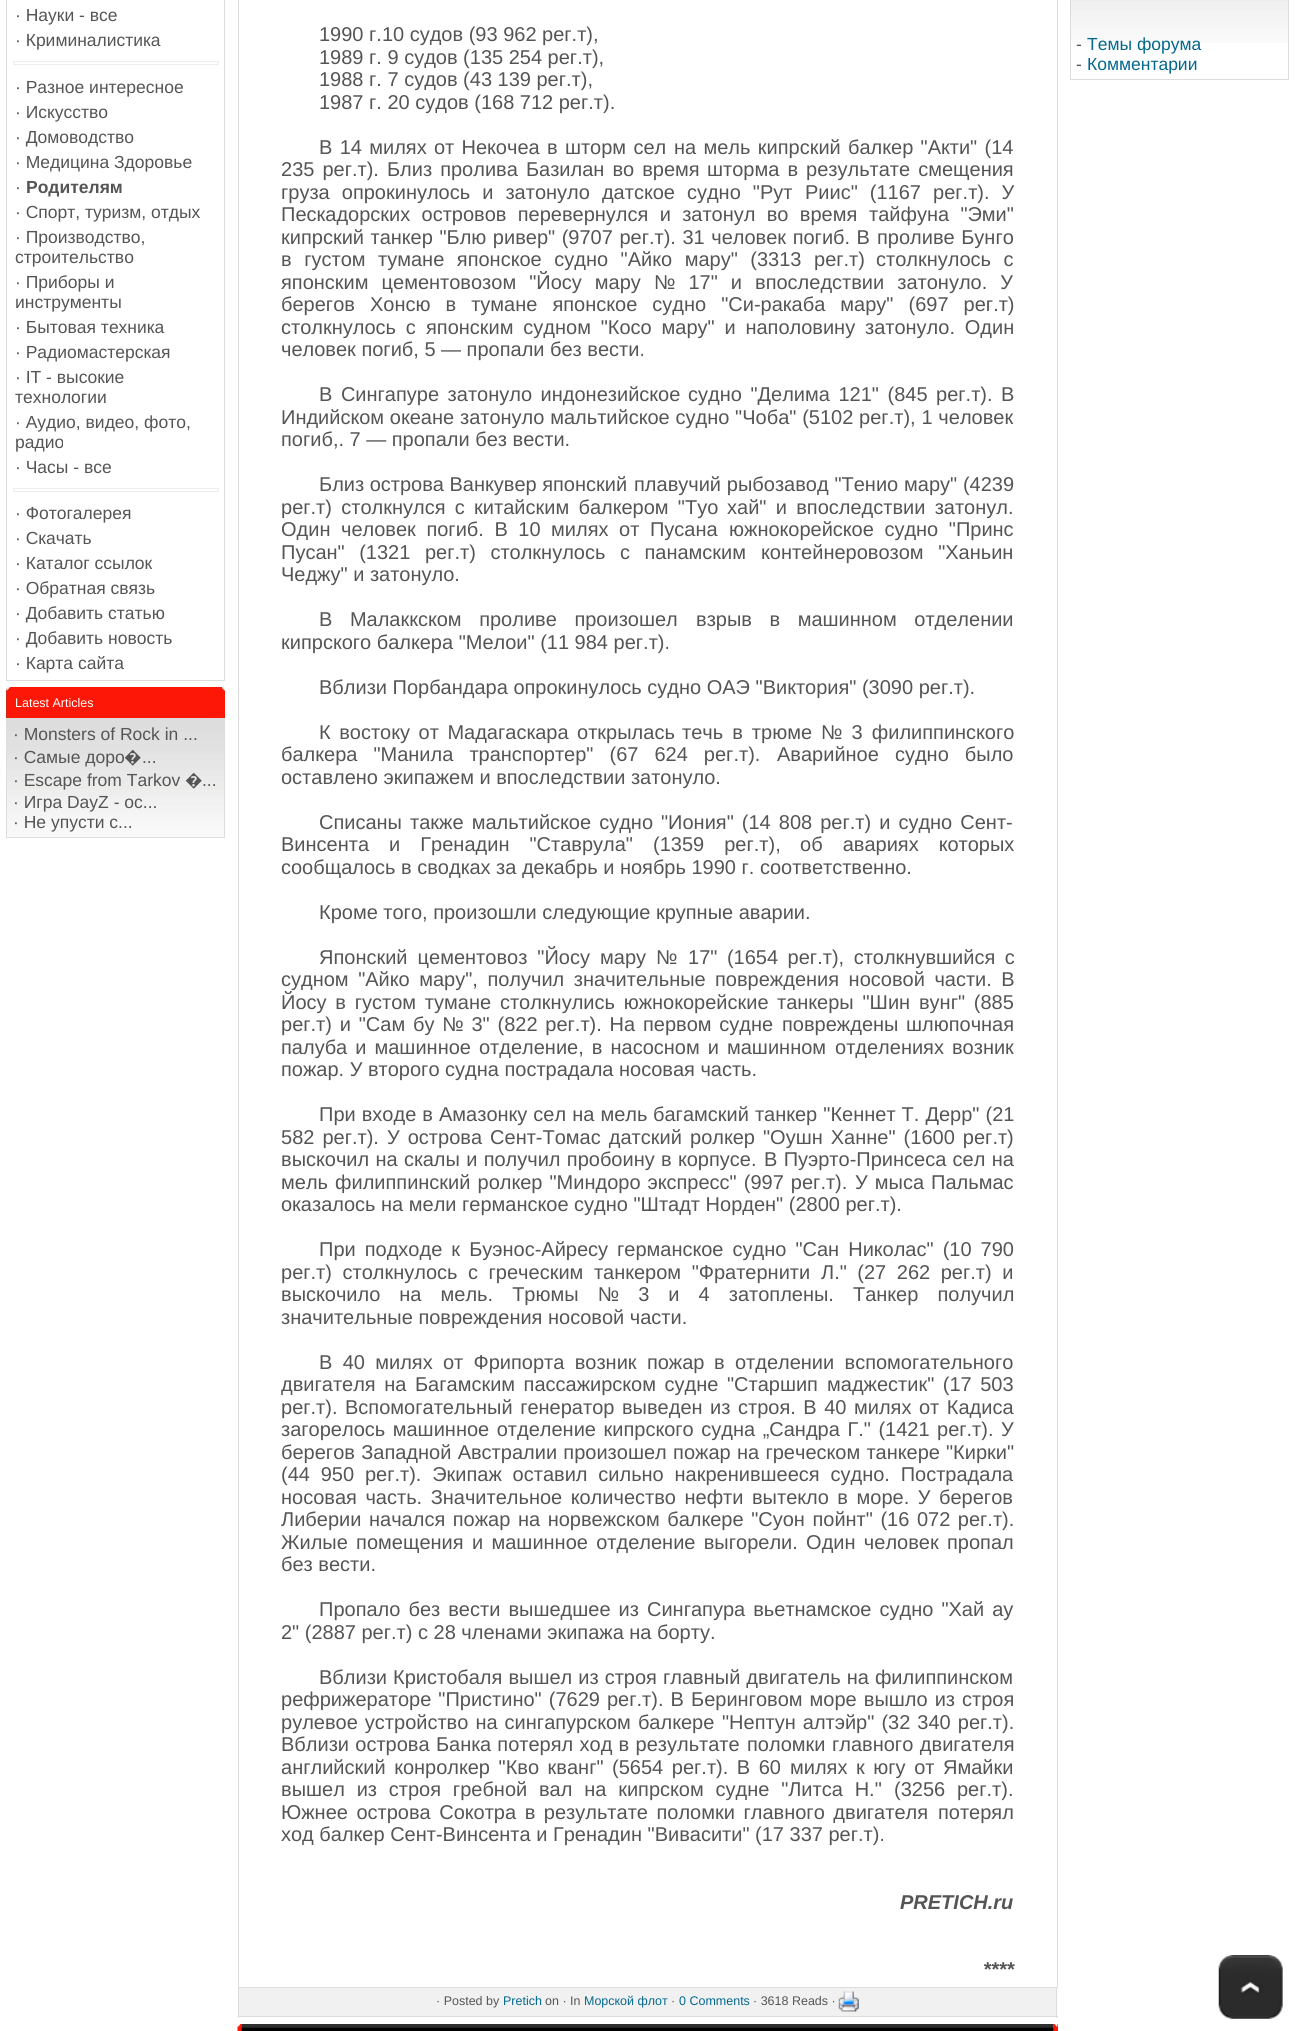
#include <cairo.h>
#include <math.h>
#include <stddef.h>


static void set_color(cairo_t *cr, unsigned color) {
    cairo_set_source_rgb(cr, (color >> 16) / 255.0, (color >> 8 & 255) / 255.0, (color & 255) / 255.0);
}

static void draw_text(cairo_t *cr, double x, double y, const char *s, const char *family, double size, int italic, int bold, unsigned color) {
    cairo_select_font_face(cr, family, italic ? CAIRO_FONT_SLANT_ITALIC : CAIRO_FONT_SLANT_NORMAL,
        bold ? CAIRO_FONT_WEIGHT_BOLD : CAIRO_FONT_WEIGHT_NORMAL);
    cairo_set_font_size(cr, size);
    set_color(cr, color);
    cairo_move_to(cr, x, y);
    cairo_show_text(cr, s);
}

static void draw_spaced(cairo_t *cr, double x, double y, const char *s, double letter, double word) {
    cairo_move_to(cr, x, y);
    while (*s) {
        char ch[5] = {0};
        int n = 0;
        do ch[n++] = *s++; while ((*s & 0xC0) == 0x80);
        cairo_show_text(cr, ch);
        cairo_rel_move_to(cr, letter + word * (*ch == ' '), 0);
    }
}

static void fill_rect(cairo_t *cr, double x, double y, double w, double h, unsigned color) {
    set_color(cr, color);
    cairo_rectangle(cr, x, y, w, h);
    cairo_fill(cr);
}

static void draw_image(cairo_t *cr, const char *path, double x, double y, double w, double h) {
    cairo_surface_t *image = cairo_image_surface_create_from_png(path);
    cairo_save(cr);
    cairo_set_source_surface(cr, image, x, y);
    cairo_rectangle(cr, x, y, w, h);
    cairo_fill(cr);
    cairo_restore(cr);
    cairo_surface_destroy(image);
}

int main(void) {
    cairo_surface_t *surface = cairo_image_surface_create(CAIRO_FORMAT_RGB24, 1295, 2031);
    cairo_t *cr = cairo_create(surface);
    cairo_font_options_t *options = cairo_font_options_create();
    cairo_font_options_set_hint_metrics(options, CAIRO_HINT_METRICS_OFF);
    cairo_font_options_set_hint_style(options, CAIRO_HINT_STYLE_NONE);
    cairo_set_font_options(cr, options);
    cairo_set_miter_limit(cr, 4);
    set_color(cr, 0xFFFFFF);
    cairo_paint(cr);
    cairo_rectangle(cr, 6.5, -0.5, 218, 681);
    set_color(cr, 0xDDDDDD);
    cairo_set_line_width(cr, 1);
    cairo_stroke(cr);
    draw_text(cr, 15, 21, "· Науки - все", "Liberation Sans", 17.5, 0, 0, 0x555555);
    draw_text(cr, 15, 46, "· Криминалистика", "Liberation Sans", 17.5, 0, 0, 0x555555);
    cairo_rectangle(cr, 13.5, 61.5, 205, 3);
    set_color(cr, 0xEEEEEE);
    cairo_stroke(cr);
    draw_text(cr, 15, 93, "· Разное интересное", "Liberation Sans", 17.5, 0, 0, 0x555555);
    draw_text(cr, 15, 118, "· Искусство", "Liberation Sans", 17.5, 0, 0, 0x555555);
    draw_text(cr, 15, 143, "· Домоводство", "Liberation Sans", 17.5, 0, 0, 0x555555);
    draw_text(cr, 15, 168, "· Медицина Здоровье", "Liberation Sans", 17.5, 0, 0, 0x555555);
    draw_text(cr, 15, 193, "·", "Liberation Sans", 17.5, 0, 0, 0x555555);
    draw_text(cr, 26, 193, "Родителям", "Liberation Sans", 17.5, 0, 1, 0x555555);
    draw_text(cr, 15, 218, "· Спорт, туризм, отдых", "Liberation Sans", 17.5, 0, 0, 0x555555);
    draw_text(cr, 15, 243, "· Производство,", "Liberation Sans", 17.5, 0, 0, 0x555555);
    draw_text(cr, 15, 263, "строительство", "Liberation Sans", 17.5, 0, 0, 0x555555);
    draw_text(cr, 15, 288, "· Приборы и", "Liberation Sans", 17.5, 0, 0, 0x555555);
    draw_text(cr, 15, 308, "инструменты", "Liberation Sans", 17.5, 0, 0, 0x555555);
    draw_text(cr, 15, 333, "· Бытовая техника", "Liberation Sans", 17.5, 0, 0, 0x555555);
    draw_text(cr, 15, 358, "· Радиомастерская", "Liberation Sans", 17.5, 0, 0, 0x555555);
    draw_text(cr, 15, 383, "· IT - высокие", "Liberation Sans", 17.5, 0, 0, 0x555555);
    draw_text(cr, 15, 403, "технологии", "Liberation Sans", 17.5, 0, 0, 0x555555);
    draw_text(cr, 15, 428, "· Аудио, видео, фото,", "Liberation Sans", 17.5, 0, 0, 0x555555);
    draw_text(cr, 15, 448, "радио", "Liberation Sans", 17.5, 0, 0, 0x555555);
    draw_text(cr, 15, 473, "· Часы - все", "Liberation Sans", 17.5, 0, 0, 0x555555);
    cairo_rectangle(cr, 13.5, 488.5, 205, 3);
    set_color(cr, 0xEEEEEE);
    cairo_stroke(cr);
    draw_text(cr, 15, 519, "· Фотогалерея", "Liberation Sans", 17.5, 0, 0, 0x555555);
    draw_text(cr, 15, 544, "· Скачать", "Liberation Sans", 17.5, 0, 0, 0x555555);
    draw_text(cr, 15, 569, "· Каталог ссылок", "Liberation Sans", 17.5, 0, 0, 0x555555);
    draw_text(cr, 15, 594, "· Обратная связь", "Liberation Sans", 17.5, 0, 0, 0x555555);
    draw_text(cr, 15, 619, "· Добавить статью", "Liberation Sans", 17.5, 0, 0, 0x555555);
    draw_text(cr, 15, 644, "· Добавить новость", "Liberation Sans", 17.5, 0, 0, 0x555555);
    draw_text(cr, 15, 669, "· Карта сайта", "Liberation Sans", 17.5, 0, 0, 0x555555);
    fill_rect(cr, 6, 688, 4, 30, 0x555555);
    draw_image(cr, "assets/img1.png", 6, 687, 4, 31);
    fill_rect(cr, 10, 687, 212, 31, 0xFD1706);
    draw_text(cr, 15, 707, "Latest Articles", "Liberation Sans", 12.5, 0, 0, 0xFFFFFF);
    fill_rect(cr, 221, 688, 4, 30, 0x555555);
    draw_image(cr, "assets/img2.png", 221, 687, 4, 31);
    draw_image(cr, "assets/img3.png", 7, 719, 217, 118);
    cairo_rectangle(cr, 6.5, 718.5, 218, 119);
    set_color(cr, 0xDDDDDD);
    cairo_stroke(cr);
    draw_text(cr, 13, 740, "· Monsters of Rock in ...", "Liberation Sans", 17.5, 0, 0, 0x555555);
    draw_text(cr, 13, 763, "· Самые доро", "Liberation Sans", 17.5, 0, 0, 0x555555);
    draw_text(cr, 124, 763, "�", "Noto Sans", 17.5, 0, 0, 0x555555);
    draw_text(cr, 142, 763, "...", "Liberation Sans", 17.5, 0, 0, 0x555555);
    draw_text(cr, 13, 786, "· Escape from Tarkov", "Liberation Sans", 17.5, 0, 0, 0x555555);
    draw_text(cr, 185, 786, "�", "Noto Sans", 17.5, 0, 0, 0x555555);
    draw_text(cr, 202, 786, "...", "Liberation Sans", 17.5, 0, 0, 0x555555);
    draw_text(cr, 13, 808, "· Игра DayZ - ос...", "Liberation Sans", 17.5, 0, 0, 0x555555);
    draw_text(cr, 13, 828, "· Не упусти с...", "Liberation Sans", 17.5, 0, 0, 0x555555);
    cairo_rectangle(cr, 238.5, -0.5, 819, 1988);
    set_color(cr, 0xDDDDDD);
    cairo_stroke(cr);
    draw_text(cr, 319, 41, "1990 г.10 судов (93 962 рег.т),", "Liberation Sans", 20, 0, 0, 0x555555);
    draw_text(cr, 319, 64, "1989 г. 9 судов (135 254 рег.т),", "Liberation Sans", 20, 0, 0, 0x555555);
    draw_text(cr, 319, 86, "1988 г. 7 судов (43 139 рег.т),", "Liberation Sans", 20, 0, 0, 0x555555);
    draw_text(cr, 319, 109, "1987 г. 20 судов (168 712 рег.т).", "Liberation Sans", 20, 0, 0, 0x555555);
    draw_spaced(cr, 319, 154, "В 14 милях от Некочеа в шторм сел", 0, 1.75);
    draw_spaced(cr, 674, 154, "на мель кипрский балкер \"Акти\" (14", 0, 1.75);
    draw_spaced(cr, 281, 176, "235 рег.т). Близ пролива Базилан во время", 0, 2.5);
    draw_spaced(cr, 707, 176, "шторма в результате смещения", 0, 2.5);
    draw_spaced(cr, 281, 199, "груза опрокинулось и затонуло датское судно \"Рут", 0, 6.5);
    draw_spaced(cr, 805, 199, "Риис\" (1167 рег.т). У", 0, 6.5);
    draw_spaced(cr, 281, 221, "Пескадорских островов перевернулся и затонул во время", 0, 5.75);
    draw_spaced(cr, 869, 221, "тайфуна \"Эми\"", 0, 5.75);
    draw_spaced(cr, 281, 244, "кипрский танкер \"Блю ривер\" (9707 рег.т). 31 человек погиб. В", 0, 1);
    draw_spaced(cr, 877, 244, "проливе Бунго", 0, 1);
    draw_spaced(cr, 281, 266, "в густом тумане японское судно \"Айко мару\" (3313 рег.т)", 0, 7);
    draw_spaced(cr, 876, 266, "столкнулось с", 0, 7);
    draw_spaced(cr, 281, 289, "японским цементовозом \"Йосу мару № 17\" и впоследствии затонуло. У", 0, 7.5);
    draw_spaced(cr, 281, 311, "берегов Хонсю в тумане японское судно \"Си-ракаба мару\" (697 рег.т)", 0, 9.5);
    draw_spaced(cr, 281, 334, "столкнулось с", 0, 4.25);
    draw_spaced(cr, 426, 334, "японским судном \"Косо мару\" и наполовину затонуло. Один", 0, 4.25);
    draw_text(cr, 281, 356, "человек погиб, 5 — пропали без вести.", "Liberation Sans", 20, 0, 0, 0x555555);
    draw_spaced(cr, 319, 401, "В Сингапуре затонуло индонезийское", 0, 3);
    draw_spaced(cr, 688, 401, "судно \"Делима 121\" (845 рег.т). В", 0, 3);
    draw_spaced(cr, 281, 424, "Индийском океане затонуло мальтийское судно \"Чоба\" (5102 рег.т), 1 человек", 0, 0.25);
    draw_text(cr, 281, 446, "погиб,. 7 — пропали без вести.", "Liberation Sans", 20, 0, 0, 0x555555);
    draw_text(cr, 319, 491, "Близ острова Ванкувер японский", "Liberation Sans", 20, 0, 0, 0x555555);
    draw_spaced(cr, 634, 491, "плавучий рыбозавод \"Тенио мару\" (4239", 0, 0.25);
    draw_spaced(cr, 281, 514, "рег.т) столкнулся с китайским балкером \"Туо", 0, 3.75);
    draw_spaced(cr, 727, 514, "хай\" и впоследствии затонул.", 0, 3.75);
    draw_spaced(cr, 281, 536, "Один человек погиб. В 10 милях от Пусана", 0, 5);
    draw_spaced(cr, 729, 536, "южнокорейское судно \"Принс", 0, 5);
    draw_spaced(cr, 281, 559, "Пусан\" (1321 рег.т) столкнулось с панамским", 0, 9);
    draw_spaced(cr, 761, 559, "контейнеровозом \"Ханьин", 0, 9);
    draw_text(cr, 281, 581, "Чеджу\" и затонуло.", "Liberation Sans", 20, 0, 0, 0x555555);
    draw_spaced(cr, 319, 626, "В Малаккском проливе произошел", 0, 12);
    draw_spaced(cr, 696, 626, "взрыв в машинном отделении", 0, 12);
    draw_text(cr, 281, 649, "кипрского балкера \"Мелои\" (11 984 рег.т).", "Liberation Sans", 20, 0, 0, 0x555555);
    draw_text(cr, 319, 694, "Вблизи Порбандара опрокинулось судно ОАЭ \"Виктория\" (3090 рег.т).", "Liberation Sans", 20, 0, 0, 0x555555);
    draw_spaced(cr, 319, 739, "К востоку от Мадагаскара открылась", 0, 3);
    draw_spaced(cr, 682, 739, "течь в трюме № 3 филиппинского", 0, 3.5);
    draw_spaced(cr, 281, 761, "балкера \"Манила транспортер\" (67 624 рег.т).", 0, 10.5);
    draw_spaced(cr, 777, 761, "Аварийное судно было", 0, 10.5);
    draw_text(cr, 281, 784, "оставлено экипажем и впоследствии затонуло.", "Liberation Sans", 20, 0, 0, 0x555555);
    draw_spaced(cr, 319, 829, "Списаны также мальтийское судно", 0, 2.5);
    draw_spaced(cr, 661, 829, "\"Иония\" (14 808 рег.т) и судно Сент-", 0, 2.5);
    draw_spaced(cr, 281, 851, "Винсента и Гренадин \"Ставрула\" (1359 рег.т),", 0, 14.5);
    draw_spaced(cr, 800, 851, "об авариях которых", 0, 14.5);
    draw_text(cr, 281, 874, "сообщалось в сводках за декабрь и ноябрь 1990 г. соответственно.", "Liberation Sans", 20, 0, 0, 0x555555);
    draw_text(cr, 319, 919, "Кроме того, произошли следующие крупные аварии.", "Liberation Sans", 20, 0, 0, 0x555555);
    draw_spaced(cr, 319, 964, "Японский цементовоз \"Йосу мару №", 0, 4.5);
    draw_spaced(cr, 688, 964, "17\" (1654 рег.т), столкнувшийся с", 0, 4);
    draw_spaced(cr, 281, 986, "судном \"Айко мару\", получил значительные", 0, 4);
    draw_spaced(cr, 715, 986, "повреждения носовой части. В", 0, 4);
    draw_spaced(cr, 281, 1009, "Йосу в густом тумане столкнулись южнокорейские", 0, 3.25);
    draw_spaced(cr, 777, 1009, "танкеры \"Шин вунг\" (885", 0, 3.25);
    draw_spaced(cr, 281, 1031, "рег.т) и \"Сам бу № 3\" (822 рег.т). На первом судне", 0, 2.25);
    draw_spaced(cr, 782, 1031, "повреждены шлюпочная", 0, 2);
    draw_spaced(cr, 281, 1054, "палуба и машинное отделение, в насосном и машинном", 0, 2.5);
    draw_spaced(cr, 835, 1054, "отделениях возник", 0, 2.5);
    draw_text(cr, 281, 1076, "пожар. У второго судна пострадала носовая часть.", "Liberation Sans", 20, 0, 0, 0x555555);
    draw_spaced(cr, 319, 1121, "При входе в Амазонку сел на мель", 0, 0.5);
    draw_spaced(cr, 653, 1121, "багамский танкер \"Кеннет Т. Дерр\" (21", 0, 0.5);
    draw_spaced(cr, 281, 1144, "582 рег.т). У острова Сент-Томас датский", 0, 2.5);
    draw_spaced(cr, 690, 1144, "ролкер \"Оушн Ханне\" (1600 рег.т)", 0, 2.5);
    draw_spaced(cr, 281, 1166, "выскочил на скалы и получил пробоину в корпусе.", 0, 0.75);
    draw_spaced(cr, 764, 1166, "В Пуэрто-Принсеса сел на", 0, 0.75);
    draw_spaced(cr, 281, 1189, "мель филиппинский ролкер \"Миндоро экспресс\" (997 рег.т).", 0, 1.5);
    draw_spaced(cr, 855, 1189, "У мыса Пальмас", 0, 1.5);
    draw_text(cr, 281, 1211, "оказалось на мели германское судно \"Штадт Норден\" (2800 рег.т).", "Liberation Sans", 20, 0, 0, 0x555555);
    draw_spaced(cr, 319, 1256, "При подходе к Буэнос-Айресу", 0, 3.5);
    draw_spaced(cr, 617, 1256, "германское судно \"Сан Николас\" (10 790", 0, 3.5);
    draw_spaced(cr, 281, 1279, "рег.т) столкнулось с греческим танкером \"Фратернити", 0, 5);
    draw_spaced(cr, 821, 1279, "Л.\" (27 262 рег.т) и", 0, 5);
    draw_spaced(cr, 281, 1301, "выскочило на мель. Трюмы № 3 и 4 затоплены. Танкер получил", 0, 13.5);
    draw_text(cr, 281, 1324, "значительные повреждения носовой части.", "Liberation Sans", 20, 0, 0, 0x555555);
    draw_spaced(cr, 319, 1369, "В 40 милях от Фрипорта возник пожар", 0, 4.75);
    draw_spaced(cr, 714, 1369, "в отделении вспомогательного", 0, 4.75);
    draw_spaced(cr, 281, 1391, "двигателя на Багамским пассажирском судне \"Старшип", 0, 3);
    draw_spaced(cr, 827, 1391, "маджестик\" (17 503", 0, 3);
    draw_spaced(cr, 281, 1414, "рег.т). Вспомогательный генератор выведен из строя. В 40", 0, 2);
    draw_spaced(cr, 854, 1414, "милях от Кадиса", 0, 2);
    draw_spaced(cr, 281, 1436, "загорелось машинное отделение кипрского судна „Сандра Г.\" (1421", 0, 2);
    draw_spaced(cr, 937, 1436, "рег.т). У", 0, 2);
    draw_spaced(cr, 281, 1459, "берегов Западной Австралии произошел пожар на греческом танкере", 0, 0.75);
    draw_text(cr, 946, 1459, "\"Кирки\"", "Liberation Sans", 20, 0, 0, 0x555555);
    draw_spaced(cr, 281, 1481, "(44 950 рег.т). Экипаж оставил сильно накренившееся судно. Пострадала", 0, 5.25);
    draw_spaced(cr, 281, 1504, "носовая часть. Значительное количество нефти вытекло в море. У берегов", 0, 3);
    draw_text(cr, 281, 1526, "Либерии", "Liberation Sans", 20, 0, 0, 0x555555);
    draw_spaced(cr, 369, 1526, "начался пожар на норвежском балкере \"Суон пойнт\" (16 072 рег.т).", 0, 2);
    draw_spaced(cr, 281, 1549, "Жилые помещения", 0, 2.75);
    draw_spaced(cr, 472, 1549, "и машинное отделение выгорели. Один человек пропал", 0, 2.75);
    draw_text(cr, 281, 1571, "без вести.", "Liberation Sans", 20, 0, 0, 0x555555);
    draw_spaced(cr, 319, 1616, "Пропало без вести вышедшее из", 0, 2.5);
    draw_spaced(cr, 647, 1616, "Сингапура вьетнамское судно \"Хай ау", 0, 2.5);
    draw_text(cr, 281, 1639, "2\" (2887 рег.т) с 28 членами экипажа на борту.", "Liberation Sans", 20, 0, 0, 0x555555);
    draw_spaced(cr, 319, 1684, "Вблизи Кристобаля вышел из строя", 0, 0.5);
    draw_spaced(cr, 663, 1684, "главный двигатель на филиппинском", 0, 0.5);
    draw_spaced(cr, 281, 1706, "рефрижераторе \"Пристино\" (7629 рег.т). В", 0, 1.5);
    draw_spaced(cr, 691, 1706, "Беринговом море вышло из строя", 0, 1.5);
    draw_spaced(cr, 281, 1729, "рулевое устройство на сингапурском балкере", 0, 1.5);
    draw_spaced(cr, 722, 1729, "\"Нептун алтэйр\" (32 340 рег.т).", 0, 1.5);
    draw_spaced(cr, 281, 1751, "Вблизи острова Банка потерял ход в результате", 0, 0.75);
    draw_spaced(cr, 747, 1751, "поломки главного двигателя", 0, 1);
    draw_spaced(cr, 281, 1774, "английский конролкер \"Кво кванг\" (5654 рег.т). В 60", 0, 3);
    draw_spaced(cr, 790, 1774, "милях к югу от Ямайки", 0, 3);
    draw_spaced(cr, 281, 1796, "вышел из строя гребной вал на кипрском судне \"Литса Н.\"", 0, 6.25);
    draw_spaced(cr, 894, 1796, "(3256 рег.т).", 0, 6.25);
    draw_spaced(cr, 281, 1819, "Южнее острова Сокотра в результате поломки главного двигателя", 0, 3);
    draw_text(cr, 938, 1819, "потерял", "Liberation Sans", 20, 0, 0, 0x555555);
    draw_text(cr, 281, 1841, "ход балкер Сент-Винсента и Гренадин \"Вивасити\" (17 337 рег.т).", "Liberation Sans", 20, 0, 0, 0x555555);
    draw_text(cr, 900, 1909, "PRETICH.ru", "Liberation Sans", 20, 1, 1, 0x555555);
    draw_text(cr, 983, 1976, "****", "Liberation Sans", 20, 1, 1, 0x555555);
    fill_rect(cr, 239, 1988, 817, 28, 0xF1F1F1);
    fill_rect(cr, 1056, 1988, 1, 30, 0xDDDDDD);
    fill_rect(cr, 238, 2016, 820, 1, 0xDDDDDD);
    fill_rect(cr, 238, 1988, 1, 30, 0xDDDDDD);
    draw_text(cr, 436, 2005, "· Posted by", "Liberation Sans", 12.5, 0, 0, 0x555555);
    draw_text(cr, 503, 2005, "Pretich", "Liberation Sans", 12.5, 0, 0, 0x04688D);
    draw_text(cr, 545, 2005, "on · In", "Liberation Sans", 12.5, 0, 0, 0x555555);
    draw_text(cr, 584, 2005, "Морской флот", "Liberation Sans", 12.5, 0, 0, 0x04688D);
    draw_text(cr, 671, 2005, "·", "Liberation Sans", 12.5, 0, 0, 0x555555);
    draw_text(cr, 679, 2005, "0 Comments", "Liberation Sans", 12.5, 0, 0, 0x04688D);
    draw_text(cr, 753, 2005, "· 3618 Reads ·", "Liberation Sans", 12.5, 0, 0, 0x555555);
    draw_image(cr, "assets/img4.png", 838, 1991, 21, 21);
    draw_image(cr, "assets/img5.png", 237, 2024, 5, 7);
    draw_image(cr, "assets/img6.png", 241, 2024, 813, 7);
    fill_rect(cr, 1057, 2024, 1, 7, 0x555555);
    draw_image(cr, "assets/img7.png", 1053, 2024, 5, 7);
    draw_image(cr, "assets/img8.png", 1071, 0, 217, 43);
    cairo_rectangle(cr, 1070.5, -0.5, 218, 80);
    set_color(cr, 0xDDDDDD);
    cairo_stroke(cr);
    draw_text(cr, 1076, 50, "-", "Liberation Sans", 17.5, 0, 0, 0x555555);
    draw_text(cr, 1087, 50, "Темы форума", "Liberation Sans", 17.5, 0, 0, 0x04688D);
    draw_text(cr, 1076, 70, "-", "Liberation Sans", 17.5, 0, 0, 0x555555);
    draw_text(cr, 1087, 70, "Комментарии", "Liberation Sans", 17.5, 0, 0, 0x04688D);
    draw_image(cr, "assets/img9.png", 1218, 1955, 65, 64);
    cairo_surface_write_to_png(surface, "output.png");
    cairo_font_options_destroy(options);
    cairo_destroy(cr);
    cairo_surface_destroy(surface);
    return 0;
}
